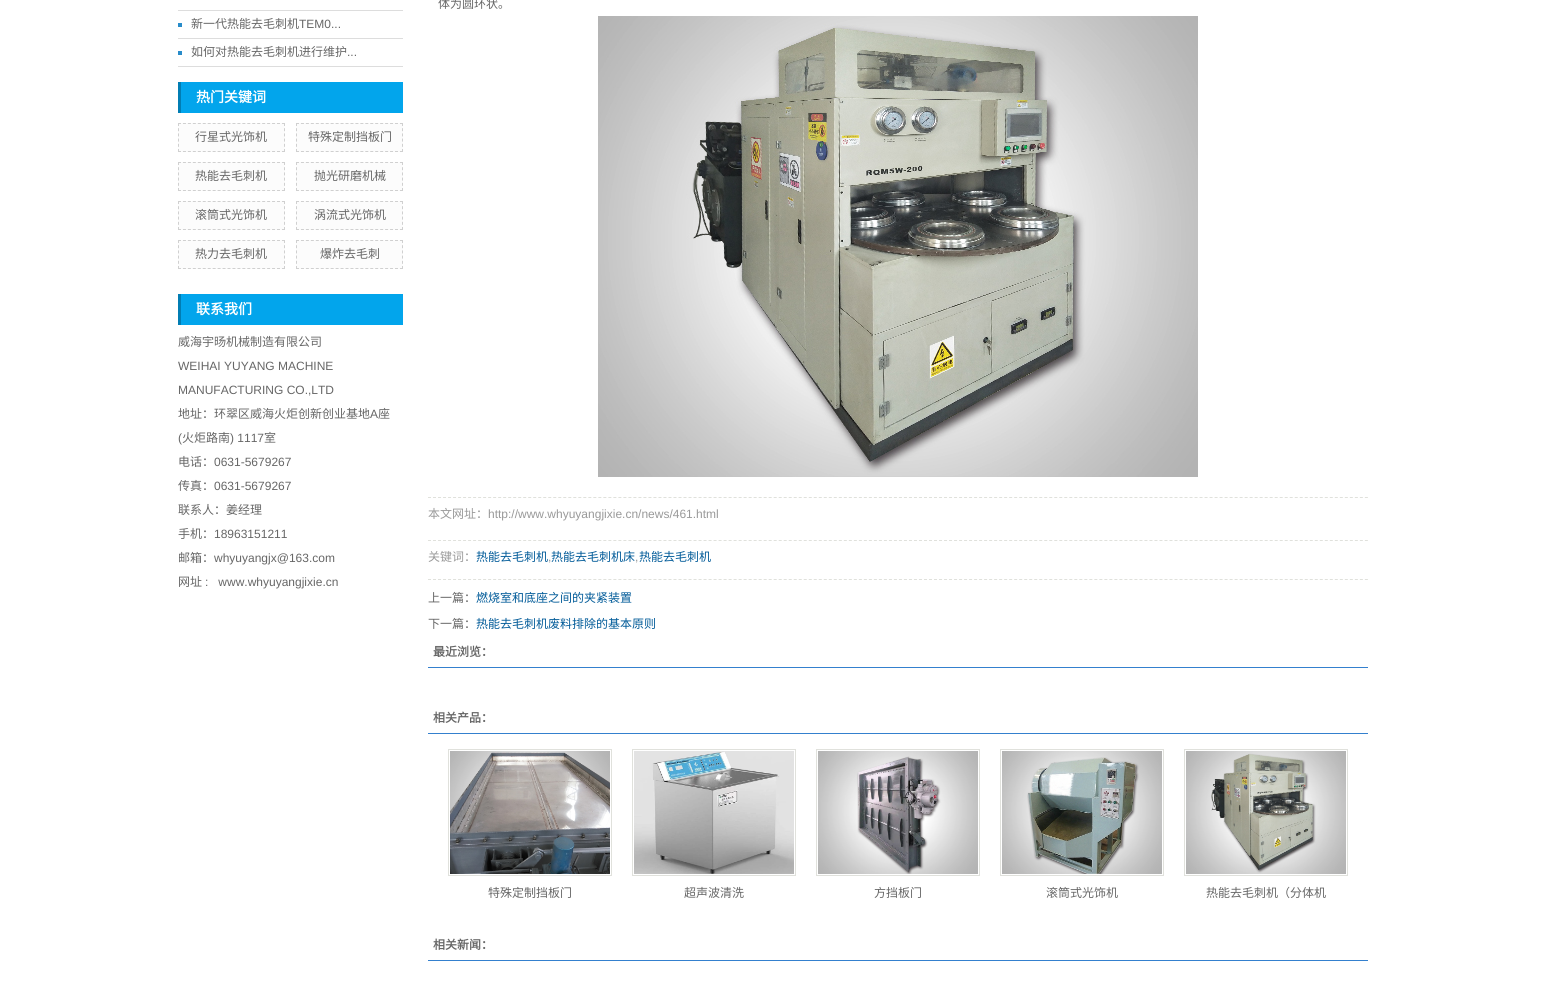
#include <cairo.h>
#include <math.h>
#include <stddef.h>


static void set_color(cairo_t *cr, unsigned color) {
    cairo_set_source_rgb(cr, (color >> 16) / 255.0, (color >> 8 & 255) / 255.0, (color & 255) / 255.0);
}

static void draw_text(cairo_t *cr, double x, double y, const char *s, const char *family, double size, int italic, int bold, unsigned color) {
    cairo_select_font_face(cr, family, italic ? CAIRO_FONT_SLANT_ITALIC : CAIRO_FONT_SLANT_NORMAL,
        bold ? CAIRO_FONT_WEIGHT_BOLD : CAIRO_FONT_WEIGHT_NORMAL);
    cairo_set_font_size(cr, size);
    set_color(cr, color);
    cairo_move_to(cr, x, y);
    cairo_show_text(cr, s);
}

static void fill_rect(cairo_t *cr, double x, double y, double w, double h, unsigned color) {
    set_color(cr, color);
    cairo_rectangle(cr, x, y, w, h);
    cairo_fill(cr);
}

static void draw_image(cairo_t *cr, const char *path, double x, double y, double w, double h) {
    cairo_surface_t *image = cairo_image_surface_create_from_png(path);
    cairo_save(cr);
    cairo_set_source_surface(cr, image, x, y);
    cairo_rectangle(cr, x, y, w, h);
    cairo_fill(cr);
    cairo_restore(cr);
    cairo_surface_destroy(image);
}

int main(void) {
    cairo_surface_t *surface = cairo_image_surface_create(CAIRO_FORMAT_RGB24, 1556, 989);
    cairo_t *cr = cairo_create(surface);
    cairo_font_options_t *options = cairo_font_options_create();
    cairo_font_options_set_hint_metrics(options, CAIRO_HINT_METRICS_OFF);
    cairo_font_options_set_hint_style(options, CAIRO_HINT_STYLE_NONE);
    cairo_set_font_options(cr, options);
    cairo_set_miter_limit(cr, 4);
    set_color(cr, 0xFFFFFF);
    cairo_paint(cr);
    fill_rect(cr, 178, 10, 225, 1, 0xDDDDDD);
    draw_image(cr, "assets/img1.png", 178, 23, 4, 4);
    fill_rect(cr, 178, 38, 225, 1, 0xDDDDDD);
    draw_text(cr, 191, 28, "新一代热能去毛刺机", "Noto Sans CJK SC", 12, 0, 0, 0x666666);
    draw_text(cr, 299, 28, "TEM0...", "Liberation Sans", 12, 0, 0, 0x666666);
    draw_image(cr, "assets/img1.png", 178, 51, 4, 4);
    fill_rect(cr, 178, 66, 225, 1, 0xDDDDDD);
    draw_text(cr, 191, 56, "如何对热能去毛刺机进行维护", "Noto Sans CJK SC", 12, 0, 0, 0x666666);
    draw_text(cr, 347, 56, "...", "Liberation Sans", 12, 0, 0, 0x666666);
    fill_rect(cr, 181, 82, 222, 31, 0x02A5EC);
    fill_rect(cr, 178, 82, 3, 31, 0x017DB3);
    draw_text(cr, 196, 102, "热门关键词", "Noto Sans CJK SC", 14, 0, 1, 0xFFFFFF);
    fill_rect(cr, 178, 123, 107, 29, 0xFCFCFC);
    cairo_new_path(cr);
    cairo_move_to(cr, 178, 123.5);
    cairo_line_to(cr, 285, 123.5);
    set_color(cr, 0xD0D0D0);
    cairo_set_line_width(cr, 1);
    cairo_set_dash(cr, (double[]){3, 1.95}, 2, 0);
    cairo_stroke(cr);
    cairo_new_path(cr);
    cairo_move_to(cr, 284.5, 123);
    cairo_line_to(cr, 284.5, 152);
    cairo_set_dash(cr, (double[]){3, 2.2}, 2, 0);
    cairo_stroke(cr);
    cairo_new_path(cr);
    cairo_move_to(cr, 178, 151.5);
    cairo_line_to(cr, 285, 151.5);
    cairo_set_dash(cr, (double[]){3, 1.95}, 2, 0);
    cairo_stroke(cr);
    cairo_new_path(cr);
    cairo_move_to(cr, 178.5, 123);
    cairo_line_to(cr, 178.5, 152);
    cairo_set_dash(cr, (double[]){3, 2.2}, 2, 0);
    cairo_stroke(cr);
    draw_text(cr, 195, 141, "行星式光饰机", "Noto Sans CJK SC", 12, 0, 0, 0x666666);
    fill_rect(cr, 296, 123, 107, 29, 0xFCFCFC);
    cairo_new_path(cr);
    cairo_move_to(cr, 296, 123.5);
    cairo_line_to(cr, 403, 123.5);
    set_color(cr, 0xD0D0D0);
    cairo_set_dash(cr, (double[]){3, 1.95}, 2, 0);
    cairo_stroke(cr);
    cairo_new_path(cr);
    cairo_move_to(cr, 402.5, 123);
    cairo_line_to(cr, 402.5, 152);
    cairo_set_dash(cr, (double[]){3, 2.2}, 2, 0);
    cairo_stroke(cr);
    cairo_new_path(cr);
    cairo_move_to(cr, 296, 151.5);
    cairo_line_to(cr, 403, 151.5);
    cairo_set_dash(cr, (double[]){3, 1.95}, 2, 0);
    cairo_stroke(cr);
    cairo_new_path(cr);
    cairo_move_to(cr, 296.5, 123);
    cairo_line_to(cr, 296.5, 152);
    cairo_set_dash(cr, (double[]){3, 2.2}, 2, 0);
    cairo_stroke(cr);
    draw_text(cr, 308, 141, "特殊定制挡板门", "Noto Sans CJK SC", 12, 0, 0, 0x666666);
    fill_rect(cr, 178, 162, 107, 29, 0xFCFCFC);
    cairo_new_path(cr);
    cairo_move_to(cr, 178, 162.5);
    cairo_line_to(cr, 285, 162.5);
    set_color(cr, 0xD0D0D0);
    cairo_set_dash(cr, (double[]){3, 1.95}, 2, 0);
    cairo_stroke(cr);
    cairo_new_path(cr);
    cairo_move_to(cr, 284.5, 162);
    cairo_line_to(cr, 284.5, 191);
    cairo_set_dash(cr, (double[]){3, 2.2}, 2, 0);
    cairo_stroke(cr);
    cairo_new_path(cr);
    cairo_move_to(cr, 178, 190.5);
    cairo_line_to(cr, 285, 190.5);
    cairo_set_dash(cr, (double[]){3, 1.95}, 2, 0);
    cairo_stroke(cr);
    cairo_new_path(cr);
    cairo_move_to(cr, 178.5, 162);
    cairo_line_to(cr, 178.5, 191);
    cairo_set_dash(cr, (double[]){3, 2.2}, 2, 0);
    cairo_stroke(cr);
    draw_text(cr, 195, 180, "热能去毛刺机", "Noto Sans CJK SC", 12, 0, 0, 0x666666);
    fill_rect(cr, 296, 162, 107, 29, 0xFCFCFC);
    cairo_new_path(cr);
    cairo_move_to(cr, 296, 162.5);
    cairo_line_to(cr, 403, 162.5);
    set_color(cr, 0xD0D0D0);
    cairo_set_dash(cr, (double[]){3, 1.95}, 2, 0);
    cairo_stroke(cr);
    cairo_new_path(cr);
    cairo_move_to(cr, 402.5, 162);
    cairo_line_to(cr, 402.5, 191);
    cairo_set_dash(cr, (double[]){3, 2.2}, 2, 0);
    cairo_stroke(cr);
    cairo_new_path(cr);
    cairo_move_to(cr, 296, 190.5);
    cairo_line_to(cr, 403, 190.5);
    cairo_set_dash(cr, (double[]){3, 1.95}, 2, 0);
    cairo_stroke(cr);
    cairo_new_path(cr);
    cairo_move_to(cr, 296.5, 162);
    cairo_line_to(cr, 296.5, 191);
    cairo_set_dash(cr, (double[]){3, 2.2}, 2, 0);
    cairo_stroke(cr);
    draw_text(cr, 314, 180, "抛光研磨机械", "Noto Sans CJK SC", 12, 0, 0, 0x666666);
    fill_rect(cr, 178, 201, 107, 29, 0xFCFCFC);
    cairo_new_path(cr);
    cairo_move_to(cr, 178, 201.5);
    cairo_line_to(cr, 285, 201.5);
    set_color(cr, 0xD0D0D0);
    cairo_set_dash(cr, (double[]){3, 1.95}, 2, 0);
    cairo_stroke(cr);
    cairo_new_path(cr);
    cairo_move_to(cr, 284.5, 201);
    cairo_line_to(cr, 284.5, 230);
    cairo_set_dash(cr, (double[]){3, 2.2}, 2, 0);
    cairo_stroke(cr);
    cairo_new_path(cr);
    cairo_move_to(cr, 178, 229.5);
    cairo_line_to(cr, 285, 229.5);
    cairo_set_dash(cr, (double[]){3, 1.95}, 2, 0);
    cairo_stroke(cr);
    cairo_new_path(cr);
    cairo_move_to(cr, 178.5, 201);
    cairo_line_to(cr, 178.5, 230);
    cairo_set_dash(cr, (double[]){3, 2.2}, 2, 0);
    cairo_stroke(cr);
    draw_text(cr, 195, 219, "滚筒式光饰机", "Noto Sans CJK SC", 12, 0, 0, 0x666666);
    fill_rect(cr, 296, 201, 107, 29, 0xFCFCFC);
    cairo_new_path(cr);
    cairo_move_to(cr, 296, 201.5);
    cairo_line_to(cr, 403, 201.5);
    set_color(cr, 0xD0D0D0);
    cairo_set_dash(cr, (double[]){3, 1.95}, 2, 0);
    cairo_stroke(cr);
    cairo_new_path(cr);
    cairo_move_to(cr, 402.5, 201);
    cairo_line_to(cr, 402.5, 230);
    cairo_set_dash(cr, (double[]){3, 2.2}, 2, 0);
    cairo_stroke(cr);
    cairo_new_path(cr);
    cairo_move_to(cr, 296, 229.5);
    cairo_line_to(cr, 403, 229.5);
    cairo_set_dash(cr, (double[]){3, 1.95}, 2, 0);
    cairo_stroke(cr);
    cairo_new_path(cr);
    cairo_move_to(cr, 296.5, 201);
    cairo_line_to(cr, 296.5, 230);
    cairo_set_dash(cr, (double[]){3, 2.2}, 2, 0);
    cairo_stroke(cr);
    draw_text(cr, 314, 219, "涡流式光饰机", "Noto Sans CJK SC", 12, 0, 0, 0x666666);
    fill_rect(cr, 178, 240, 107, 29, 0xFCFCFC);
    cairo_new_path(cr);
    cairo_move_to(cr, 178, 240.5);
    cairo_line_to(cr, 285, 240.5);
    set_color(cr, 0xD0D0D0);
    cairo_set_dash(cr, (double[]){3, 1.95}, 2, 0);
    cairo_stroke(cr);
    cairo_new_path(cr);
    cairo_move_to(cr, 284.5, 240);
    cairo_line_to(cr, 284.5, 269);
    cairo_set_dash(cr, (double[]){3, 2.2}, 2, 0);
    cairo_stroke(cr);
    cairo_new_path(cr);
    cairo_move_to(cr, 178, 268.5);
    cairo_line_to(cr, 285, 268.5);
    cairo_set_dash(cr, (double[]){3, 1.95}, 2, 0);
    cairo_stroke(cr);
    cairo_new_path(cr);
    cairo_move_to(cr, 178.5, 240);
    cairo_line_to(cr, 178.5, 269);
    cairo_set_dash(cr, (double[]){3, 2.2}, 2, 0);
    cairo_stroke(cr);
    draw_text(cr, 195, 258, "热力去毛刺机", "Noto Sans CJK SC", 12, 0, 0, 0x666666);
    fill_rect(cr, 296, 240, 107, 29, 0xFCFCFC);
    cairo_new_path(cr);
    cairo_move_to(cr, 296, 240.5);
    cairo_line_to(cr, 403, 240.5);
    set_color(cr, 0xD0D0D0);
    cairo_set_dash(cr, (double[]){3, 1.95}, 2, 0);
    cairo_stroke(cr);
    cairo_new_path(cr);
    cairo_move_to(cr, 402.5, 240);
    cairo_line_to(cr, 402.5, 269);
    cairo_set_dash(cr, (double[]){3, 2.2}, 2, 0);
    cairo_stroke(cr);
    cairo_new_path(cr);
    cairo_move_to(cr, 296, 268.5);
    cairo_line_to(cr, 403, 268.5);
    cairo_set_dash(cr, (double[]){3, 1.95}, 2, 0);
    cairo_stroke(cr);
    cairo_new_path(cr);
    cairo_move_to(cr, 296.5, 240);
    cairo_line_to(cr, 296.5, 269);
    cairo_set_dash(cr, (double[]){3, 2.2}, 2, 0);
    cairo_stroke(cr);
    draw_text(cr, 320, 258, "爆炸去毛刺", "Noto Sans CJK SC", 12, 0, 0, 0x666666);
    fill_rect(cr, 181, 294, 222, 31, 0x02A5EC);
    fill_rect(cr, 178, 294, 3, 31, 0x017DB3);
    draw_text(cr, 196, 314, "联系我们", "Noto Sans CJK SC", 14, 0, 1, 0xFFFFFF);
    draw_text(cr, 178, 346, "威海宇旸机械制造有限公司", "Noto Sans CJK SC", 12, 0, 0, 0x666666);
    draw_text(cr, 178, 370, "WEIHAI YUYANG MACHINE", "Liberation Sans", 12, 0, 0, 0x666666);
    draw_text(cr, 178, 394, "MANUFACTURING CO.,LTD", "Liberation Sans", 12, 0, 0, 0x666666);
    draw_text(cr, 178, 418, "地址：环翠区威海火炬创新创业基地", "Noto Sans CJK SC", 12, 0, 0, 0x666666);
    draw_text(cr, 370, 418, "A", "Liberation Sans", 12, 0, 0, 0x666666);
    draw_text(cr, 378, 418, "座", "Noto Sans CJK SC", 12, 0, 0, 0x666666);
    draw_text(cr, 178, 442, "(", "Liberation Sans", 12, 0, 0, 0x666666);
    draw_text(cr, 182, 442, "火炬路南", "Noto Sans CJK SC", 12, 0, 0, 0x666666);
    draw_text(cr, 230, 442, ") 1117", "Liberation Sans", 12, 0, 0, 0x666666);
    draw_text(cr, 264, 442, "室", "Noto Sans CJK SC", 12, 0, 0, 0x666666);
    draw_text(cr, 178, 466, "电话：", "Noto Sans CJK SC", 12, 0, 0, 0x666666);
    draw_text(cr, 214, 466, "0631-5679267", "Liberation Sans", 12, 0, 0, 0x666666);
    draw_text(cr, 178, 490, "传真：", "Noto Sans CJK SC", 12, 0, 0, 0x666666);
    draw_text(cr, 214, 490, "0631-5679267", "Liberation Sans", 12, 0, 0, 0x666666);
    draw_text(cr, 178, 514, "联系人：姜经理", "Noto Sans CJK SC", 12, 0, 0, 0x666666);
    draw_text(cr, 178, 538, "手机：", "Noto Sans CJK SC", 12, 0, 0, 0x666666);
    draw_text(cr, 214, 538, "18963151211", "Liberation Sans", 12, 0, 0, 0x666666);
    draw_text(cr, 178, 562, "邮箱：", "Noto Sans CJK SC", 12, 0, 0, 0x666666);
    draw_text(cr, 214, 562, "whyuyangjx@163.com", "Liberation Sans", 12, 0, 0, 0x666666);
    draw_text(cr, 178, 586, "网址", "Noto Sans CJK SC", 12, 0, 0, 0x666666);
    draw_text(cr, 205, 586, ":   www.whyuyangjixie.cn", "Liberation Sans", 12, 0, 0, 0x666666);
    draw_text(cr, 438, 8, "体为圆环状。", "Noto Sans CJK SC", 12, 0, 0, 0x666666);
    draw_image(cr, "assets/img2.png", 598, 16, 600, 461);
    cairo_new_path(cr);
    cairo_move_to(cr, 428, 497.5);
    cairo_line_to(cr, 1368, 497.5);
    set_color(cr, 0xE0E1DC);
    cairo_set_dash(cr, (double[]){3, 2.01}, 2, 0);
    cairo_stroke(cr);
    draw_text(cr, 428, 518, "本文网址：", "Noto Sans CJK SC", 12, 0, 0, 0x999999);
    draw_text(cr, 488, 518, "http://www.whyuyangjixie.cn/news/461.html", "Liberation Sans", 12, 0, 0, 0x999999);
    cairo_new_path(cr);
    cairo_move_to(cr, 428, 540.5);
    cairo_line_to(cr, 1368, 540.5);
    set_color(cr, 0xE0E1DC);
    cairo_stroke(cr);
    draw_text(cr, 428, 561, "关键词：", "Noto Sans CJK SC", 12, 0, 0, 0x999999);
    draw_text(cr, 476, 561, "热能去毛刺机", "Noto Sans CJK SC", 12, 0, 0, 0x005A98);
    draw_text(cr, 548, 561, ",", "Liberation Sans", 12, 0, 0, 0x999999);
    draw_text(cr, 551, 561, "热能去毛刺机床", "Noto Sans CJK SC", 12, 0, 0, 0x005A98);
    draw_text(cr, 635, 561, ",", "Liberation Sans", 12, 0, 0, 0x999999);
    draw_text(cr, 639, 561, "热能去毛刺机", "Noto Sans CJK SC", 12, 0, 0, 0x005A98);
    cairo_new_path(cr);
    cairo_move_to(cr, 428, 579.5);
    cairo_line_to(cr, 1368, 579.5);
    set_color(cr, 0xE0E1DC);
    cairo_stroke(cr);
    draw_text(cr, 428, 602, "上一篇：", "Noto Sans CJK SC", 12, 0, 0, 0x666666);
    draw_text(cr, 476, 602, "燃烧室和底座之间的夹紧装置", "Noto Sans CJK SC", 12, 0, 0, 0x005A98);
    draw_text(cr, 428, 628, "下一篇：", "Noto Sans CJK SC", 12, 0, 0, 0x666666);
    draw_text(cr, 476, 628, "热能去毛刺机废料排除的基本原则", "Noto Sans CJK SC", 12, 0, 0, 0x005A98);
    fill_rect(cr, 428, 667, 940, 1, 0x3480CE);
    draw_text(cr, 433, 656, "最近浏览：", "Noto Sans CJK SC", 12, 0, 1, 0x666666);
    fill_rect(cr, 428, 733, 940, 1, 0x3480CE);
    draw_text(cr, 433, 722, "相关产品：", "Noto Sans CJK SC", 12, 0, 1, 0x666666);
    cairo_rectangle(cr, 448.5, 749.5, 163, 126);
    set_color(cr, 0xE0E1DC);
    cairo_set_dash(cr, NULL, 0, 0);
    cairo_stroke(cr);
    draw_image(cr, "assets/img3.png", 450, 751, 160, 123);
    draw_text(cr, 488, 897, "特殊定制挡板门", "Noto Sans CJK SC", 12, 0, 0, 0x666666);
    cairo_rectangle(cr, 632.5, 749.5, 163, 126);
    set_color(cr, 0xE0E1DC);
    cairo_stroke(cr);
    draw_image(cr, "assets/img4.png", 634, 751, 160, 123);
    draw_text(cr, 684, 897, "超声波清洗", "Noto Sans CJK SC", 12, 0, 0, 0x666666);
    cairo_rectangle(cr, 816.5, 749.5, 163, 126);
    set_color(cr, 0xE0E1DC);
    cairo_stroke(cr);
    draw_image(cr, "assets/img5.png", 818, 751, 160, 123);
    draw_text(cr, 874, 897, "方挡板门", "Noto Sans CJK SC", 12, 0, 0, 0x666666);
    cairo_rectangle(cr, 1000.5, 749.5, 163, 126);
    set_color(cr, 0xE0E1DC);
    cairo_stroke(cr);
    draw_image(cr, "assets/img6.png", 1002, 751, 160, 123);
    draw_text(cr, 1046, 897, "滚筒式光饰机", "Noto Sans CJK SC", 12, 0, 0, 0x666666);
    cairo_rectangle(cr, 1184.5, 749.5, 163, 126);
    set_color(cr, 0xE0E1DC);
    cairo_stroke(cr);
    draw_image(cr, "assets/img7.png", 1186, 751, 160, 123);
    draw_text(cr, 1206, 897, "热能去毛刺机（分体机", "Noto Sans CJK SC", 12, 0, 0, 0x666666);
    fill_rect(cr, 428, 960, 940, 1, 0x3480CE);
    draw_text(cr, 433, 949, "相关新闻：", "Noto Sans CJK SC", 12, 0, 1, 0x666666);
    cairo_surface_write_to_png(surface, "output.png");
    cairo_font_options_destroy(options);
    cairo_destroy(cr);
    cairo_surface_destroy(surface);
    return 0;
}
